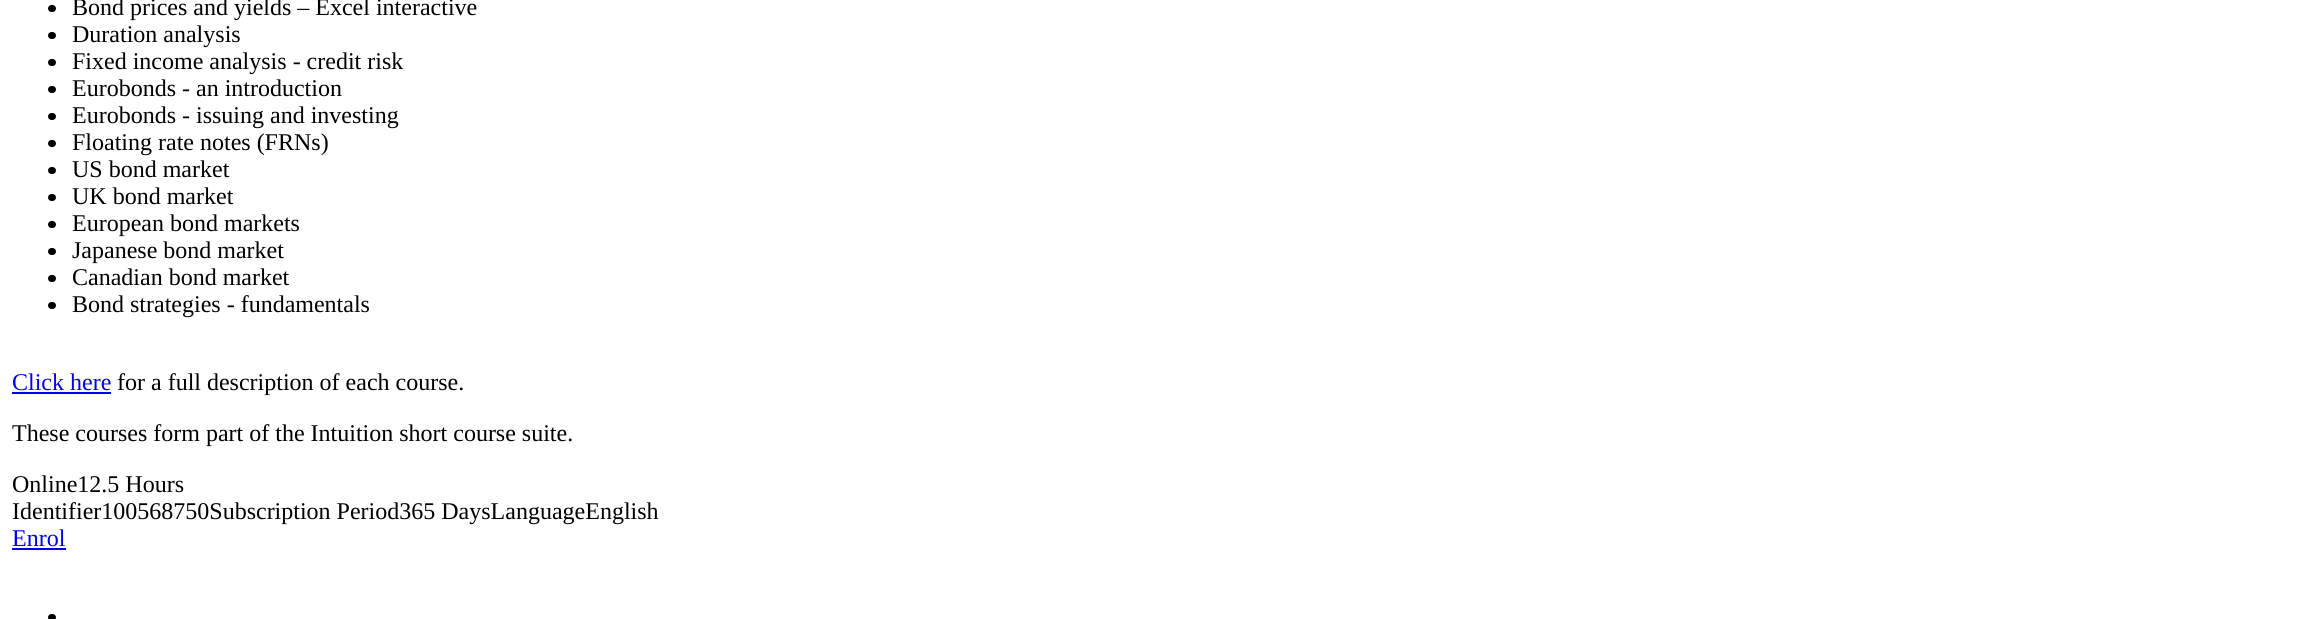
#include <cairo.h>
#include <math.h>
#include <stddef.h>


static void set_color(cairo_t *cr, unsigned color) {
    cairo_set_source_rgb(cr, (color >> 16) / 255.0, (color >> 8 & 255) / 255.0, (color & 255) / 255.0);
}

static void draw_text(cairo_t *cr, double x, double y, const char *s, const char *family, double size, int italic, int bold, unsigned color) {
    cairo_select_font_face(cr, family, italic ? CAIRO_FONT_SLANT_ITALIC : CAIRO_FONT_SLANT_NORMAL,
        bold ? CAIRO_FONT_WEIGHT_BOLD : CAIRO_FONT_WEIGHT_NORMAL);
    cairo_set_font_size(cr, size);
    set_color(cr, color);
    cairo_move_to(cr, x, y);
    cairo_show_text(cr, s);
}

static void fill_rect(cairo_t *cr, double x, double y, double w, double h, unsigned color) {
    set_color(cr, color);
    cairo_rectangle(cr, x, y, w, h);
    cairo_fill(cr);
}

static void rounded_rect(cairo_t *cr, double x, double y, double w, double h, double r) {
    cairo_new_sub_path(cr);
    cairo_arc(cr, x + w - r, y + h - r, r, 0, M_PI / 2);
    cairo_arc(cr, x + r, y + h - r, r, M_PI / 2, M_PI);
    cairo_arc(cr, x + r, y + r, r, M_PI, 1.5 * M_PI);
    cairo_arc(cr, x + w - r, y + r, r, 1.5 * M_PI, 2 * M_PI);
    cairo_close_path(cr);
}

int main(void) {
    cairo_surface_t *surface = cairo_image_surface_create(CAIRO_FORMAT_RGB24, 2310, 619);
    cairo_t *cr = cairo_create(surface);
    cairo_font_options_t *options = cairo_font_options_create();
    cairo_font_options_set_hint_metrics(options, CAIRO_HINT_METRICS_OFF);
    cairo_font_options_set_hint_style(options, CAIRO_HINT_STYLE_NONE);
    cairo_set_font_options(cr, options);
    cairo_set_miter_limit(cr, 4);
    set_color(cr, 0xFFFFFF);
    cairo_paint(cr);
    set_color(cr, 0x000000);
    rounded_rect(cr, 48, 5, 8, 7, 3.5);
    cairo_fill(cr);
    draw_text(cr, 72, 15, "Bond prices and yields – Excel interactive", "Liberation Serif", 24, 0, 0, 0x000000);
    rounded_rect(cr, 48, 32, 8, 7, 3.5);
    cairo_fill(cr);
    draw_text(cr, 72, 42, "Duration analysis", "Liberation Serif", 24, 0, 0, 0x000000);
    rounded_rect(cr, 48, 59, 8, 7, 3.5);
    cairo_fill(cr);
    draw_text(cr, 72, 69, "Fixed income analysis - credit risk", "Liberation Serif", 24, 0, 0, 0x000000);
    rounded_rect(cr, 48, 86, 8, 7, 3.5);
    cairo_fill(cr);
    draw_text(cr, 72, 96, "Eurobonds - an introduction", "Liberation Serif", 24, 0, 0, 0x000000);
    rounded_rect(cr, 48, 113, 8, 7, 3.5);
    cairo_fill(cr);
    draw_text(cr, 72, 123, "Eurobonds - issuing and investing", "Liberation Serif", 24, 0, 0, 0x000000);
    rounded_rect(cr, 48, 140, 8, 7, 3.5);
    cairo_fill(cr);
    draw_text(cr, 72, 150, "Floating rate notes (FRNs)", "Liberation Serif", 24, 0, 0, 0x000000);
    rounded_rect(cr, 48, 167, 8, 7, 3.5);
    cairo_fill(cr);
    draw_text(cr, 72, 177, "US bond market", "Liberation Serif", 24, 0, 0, 0x000000);
    rounded_rect(cr, 48, 194, 8, 7, 3.5);
    cairo_fill(cr);
    draw_text(cr, 72, 204, "UK bond market", "Liberation Serif", 24, 0, 0, 0x000000);
    rounded_rect(cr, 48, 221, 8, 7, 3.5);
    cairo_fill(cr);
    draw_text(cr, 72, 231, "European bond markets", "Liberation Serif", 24, 0, 0, 0x000000);
    rounded_rect(cr, 48, 248, 8, 7, 3.5);
    cairo_fill(cr);
    draw_text(cr, 72, 258, "Japanese bond market", "Liberation Serif", 24, 0, 0, 0x000000);
    rounded_rect(cr, 48, 275, 8, 7, 3.5);
    cairo_fill(cr);
    draw_text(cr, 72, 285, "Canadian bond market", "Liberation Serif", 24, 0, 0, 0x000000);
    rounded_rect(cr, 48, 302, 8, 7, 3.5);
    cairo_fill(cr);
    draw_text(cr, 72, 312, "Bond strategies - fundamentals", "Liberation Serif", 24, 0, 0, 0x000000);
    draw_text(cr, 12, 390, "Click here", "Liberation Serif", 24, 0, 0, 0x0000EE);
    fill_rect(cr, 12, 392, 99, 2, 0x0000EE);
    draw_text(cr, 117, 390, "for a full description of each course.", "Liberation Serif", 24, 0, 0, 0x000000);
    draw_text(cr, 12, 441, "These courses form part of the Intuition short course suite.", "Liberation Serif", 24, 0, 0, 0x000000);
    draw_text(cr, 12, 492, "Online12.5 Hours", "Liberation Serif", 24, 0, 0, 0x000000);
    draw_text(cr, 12, 519, "Identifier100568750Subscription Period365 DaysLanguageEnglish", "Liberation Serif", 24, 0, 0, 0x000000);
    draw_text(cr, 12, 546, "Enrol", "Liberation Serif", 24, 0, 0, 0x0000EE);
    fill_rect(cr, 12, 548, 54, 2, 0x0000EE);
    set_color(cr, 0x000000);
    rounded_rect(cr, 48, 614, 8, 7, 3.5);
    cairo_fill(cr);
    cairo_surface_write_to_png(surface, "output.png");
    cairo_font_options_destroy(options);
    cairo_destroy(cr);
    cairo_surface_destroy(surface);
    return 0;
}
